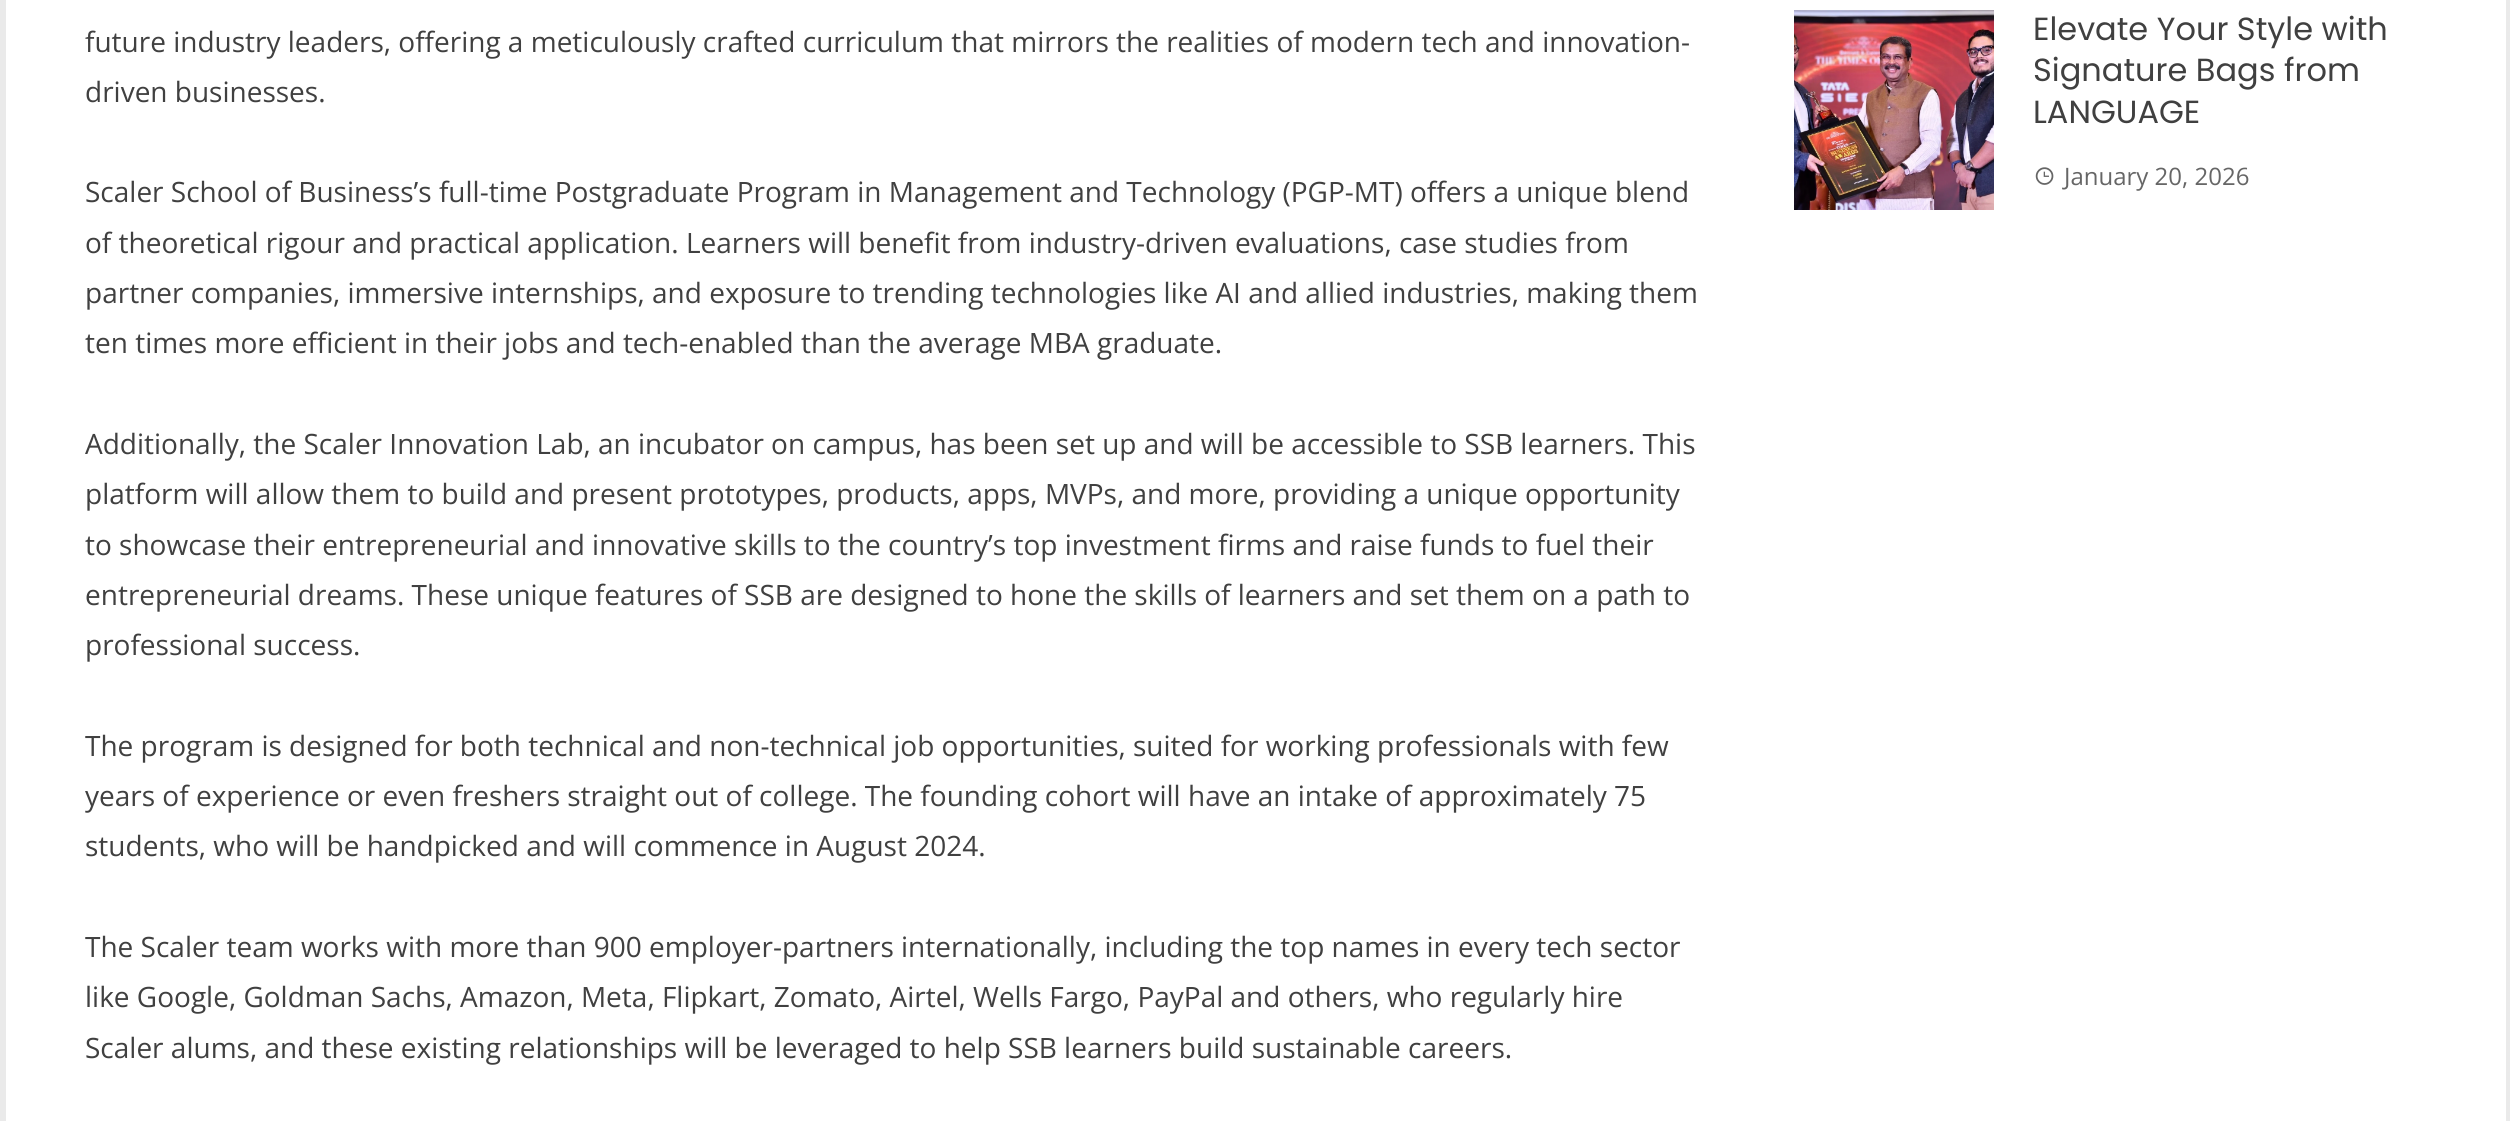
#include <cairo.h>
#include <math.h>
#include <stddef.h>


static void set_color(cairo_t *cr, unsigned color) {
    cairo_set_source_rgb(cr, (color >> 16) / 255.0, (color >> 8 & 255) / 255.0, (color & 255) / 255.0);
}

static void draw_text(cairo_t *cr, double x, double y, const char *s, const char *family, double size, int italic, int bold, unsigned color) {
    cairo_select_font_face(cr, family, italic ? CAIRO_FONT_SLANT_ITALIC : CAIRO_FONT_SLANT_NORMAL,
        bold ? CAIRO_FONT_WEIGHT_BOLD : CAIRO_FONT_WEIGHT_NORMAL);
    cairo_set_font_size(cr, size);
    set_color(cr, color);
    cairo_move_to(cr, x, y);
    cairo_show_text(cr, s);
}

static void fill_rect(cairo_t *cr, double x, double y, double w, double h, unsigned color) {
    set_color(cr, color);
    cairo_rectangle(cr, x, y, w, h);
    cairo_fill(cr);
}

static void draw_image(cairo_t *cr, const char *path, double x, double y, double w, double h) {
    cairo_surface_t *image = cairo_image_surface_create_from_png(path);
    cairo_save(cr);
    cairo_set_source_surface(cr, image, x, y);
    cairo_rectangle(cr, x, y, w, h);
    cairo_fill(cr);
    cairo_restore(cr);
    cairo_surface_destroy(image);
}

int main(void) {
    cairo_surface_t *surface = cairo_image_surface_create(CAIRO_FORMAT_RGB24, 2510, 1121);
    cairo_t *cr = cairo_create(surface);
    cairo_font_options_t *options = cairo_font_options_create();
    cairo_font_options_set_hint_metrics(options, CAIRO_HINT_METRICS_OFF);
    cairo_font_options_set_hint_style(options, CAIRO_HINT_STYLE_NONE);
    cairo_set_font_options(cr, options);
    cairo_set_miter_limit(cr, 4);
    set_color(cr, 0xEAEAEA);
    cairo_paint(cr);
    fill_rect(cr, 6, 0, 2500, 1121, 0xFFFFFF);
    draw_text(cr, 85, 52, "future industry leaders, offering a meticulously crafted curriculum that mirrors the realities of modern tech and innovation-", "Open Sans", 28, 0, 0, 0x404040);
    draw_text(cr, 85, 102, "driven businesses.", "Open Sans", 28, 0, 0, 0x404040);
    draw_text(cr, 85, 202, "Scaler School of Business’s full-time Postgraduate Program in Management and Technology (PGP-MT) offers a unique blend", "Open Sans", 28, 0, 0, 0x404040);
    draw_text(cr, 85, 253, "of theoretical rigour and practical application. Learners will benefit from industry-driven evaluations, case studies from", "Open Sans", 28, 0, 0, 0x404040);
    draw_text(cr, 85, 303, "partner companies, immersive internships, and exposure to trending technologies like AI and allied industries, making them", "Open Sans", 28, 0, 0, 0x404040);
    draw_text(cr, 85, 353, "ten times more efficient in their jobs and tech-enabled than the average MBA graduate.", "Open Sans", 28, 0, 0, 0x404040);
    draw_text(cr, 85, 454, "Additionally, the Scaler Innovation Lab, an incubator on campus, has been set up and will be accessible to SSB learners. This", "Open Sans", 28, 0, 0, 0x404040);
    draw_text(cr, 85, 504, "platform will allow them to build and present prototypes, products, apps, MVPs, and more, providing a unique opportunity", "Open Sans", 28, 0, 0, 0x404040);
    draw_text(cr, 85, 555, "to showcase their entrepreneurial and innovative skills to the country’s top investment firms and raise funds to fuel their", "Open Sans", 28, 0, 0, 0x404040);
    draw_text(cr, 85, 605, "entrepreneurial dreams. These unique features of SSB are designed to hone the skills of learners and set them on a path to", "Open Sans", 28, 0, 0, 0x404040);
    draw_text(cr, 85, 655, "professional success.", "Open Sans", 28, 0, 0, 0x404040);
    draw_text(cr, 85, 756, "The program is designed for both technical and non-technical job opportunities, suited for working professionals with few", "Open Sans", 28, 0, 0, 0x404040);
    draw_text(cr, 85, 806, "years of experience or even freshers straight out of college. The founding cohort will have an intake of approximately 75", "Open Sans", 28, 0, 0, 0x404040);
    draw_text(cr, 85, 856, "students, who will be handpicked and will commence in August 2024.", "Open Sans", 28, 0, 0, 0x404040);
    draw_text(cr, 85, 957, "The Scaler team works with more than 900 employer-partners internationally, including the top names in every tech sector", "Open Sans", 28, 0, 0, 0x404040);
    draw_text(cr, 85, 1007, "like Google, Goldman Sachs, Amazon, Meta, Flipkart, Zomato, Airtel, Wells Fargo, PayPal and others, who regularly hire", "Open Sans", 28, 0, 0, 0x404040);
    draw_text(cr, 85, 1058, "Scaler alums, and these existing relationships will be leveraged to help SSB learners build sustainable careers.", "Open Sans", 28, 0, 0, 0x404040);
    draw_image(cr, "assets/img1.png", 1794, 10, 200, 200);
    draw_text(cr, 2033, 40, "Elevate Your Style with", "Poppins", 32, 0, 0, 0x404040);
    draw_text(cr, 2033, 81, "Signature Bags from", "Poppins", 32, 0, 0, 0x404040);
    draw_text(cr, 2033, 123, "LANGUAGE", "Poppins", 32, 0, 0, 0x404040);
    draw_image(cr, "assets/img2.png", 2035, 167, 19, 18);
    draw_text(cr, 2064, 185, "January 20, 2026", "Open Sans", 24, 0, 0, 0x666666);
    cairo_surface_write_to_png(surface, "output.png");
    cairo_font_options_destroy(options);
    cairo_destroy(cr);
    cairo_surface_destroy(surface);
    return 0;
}
